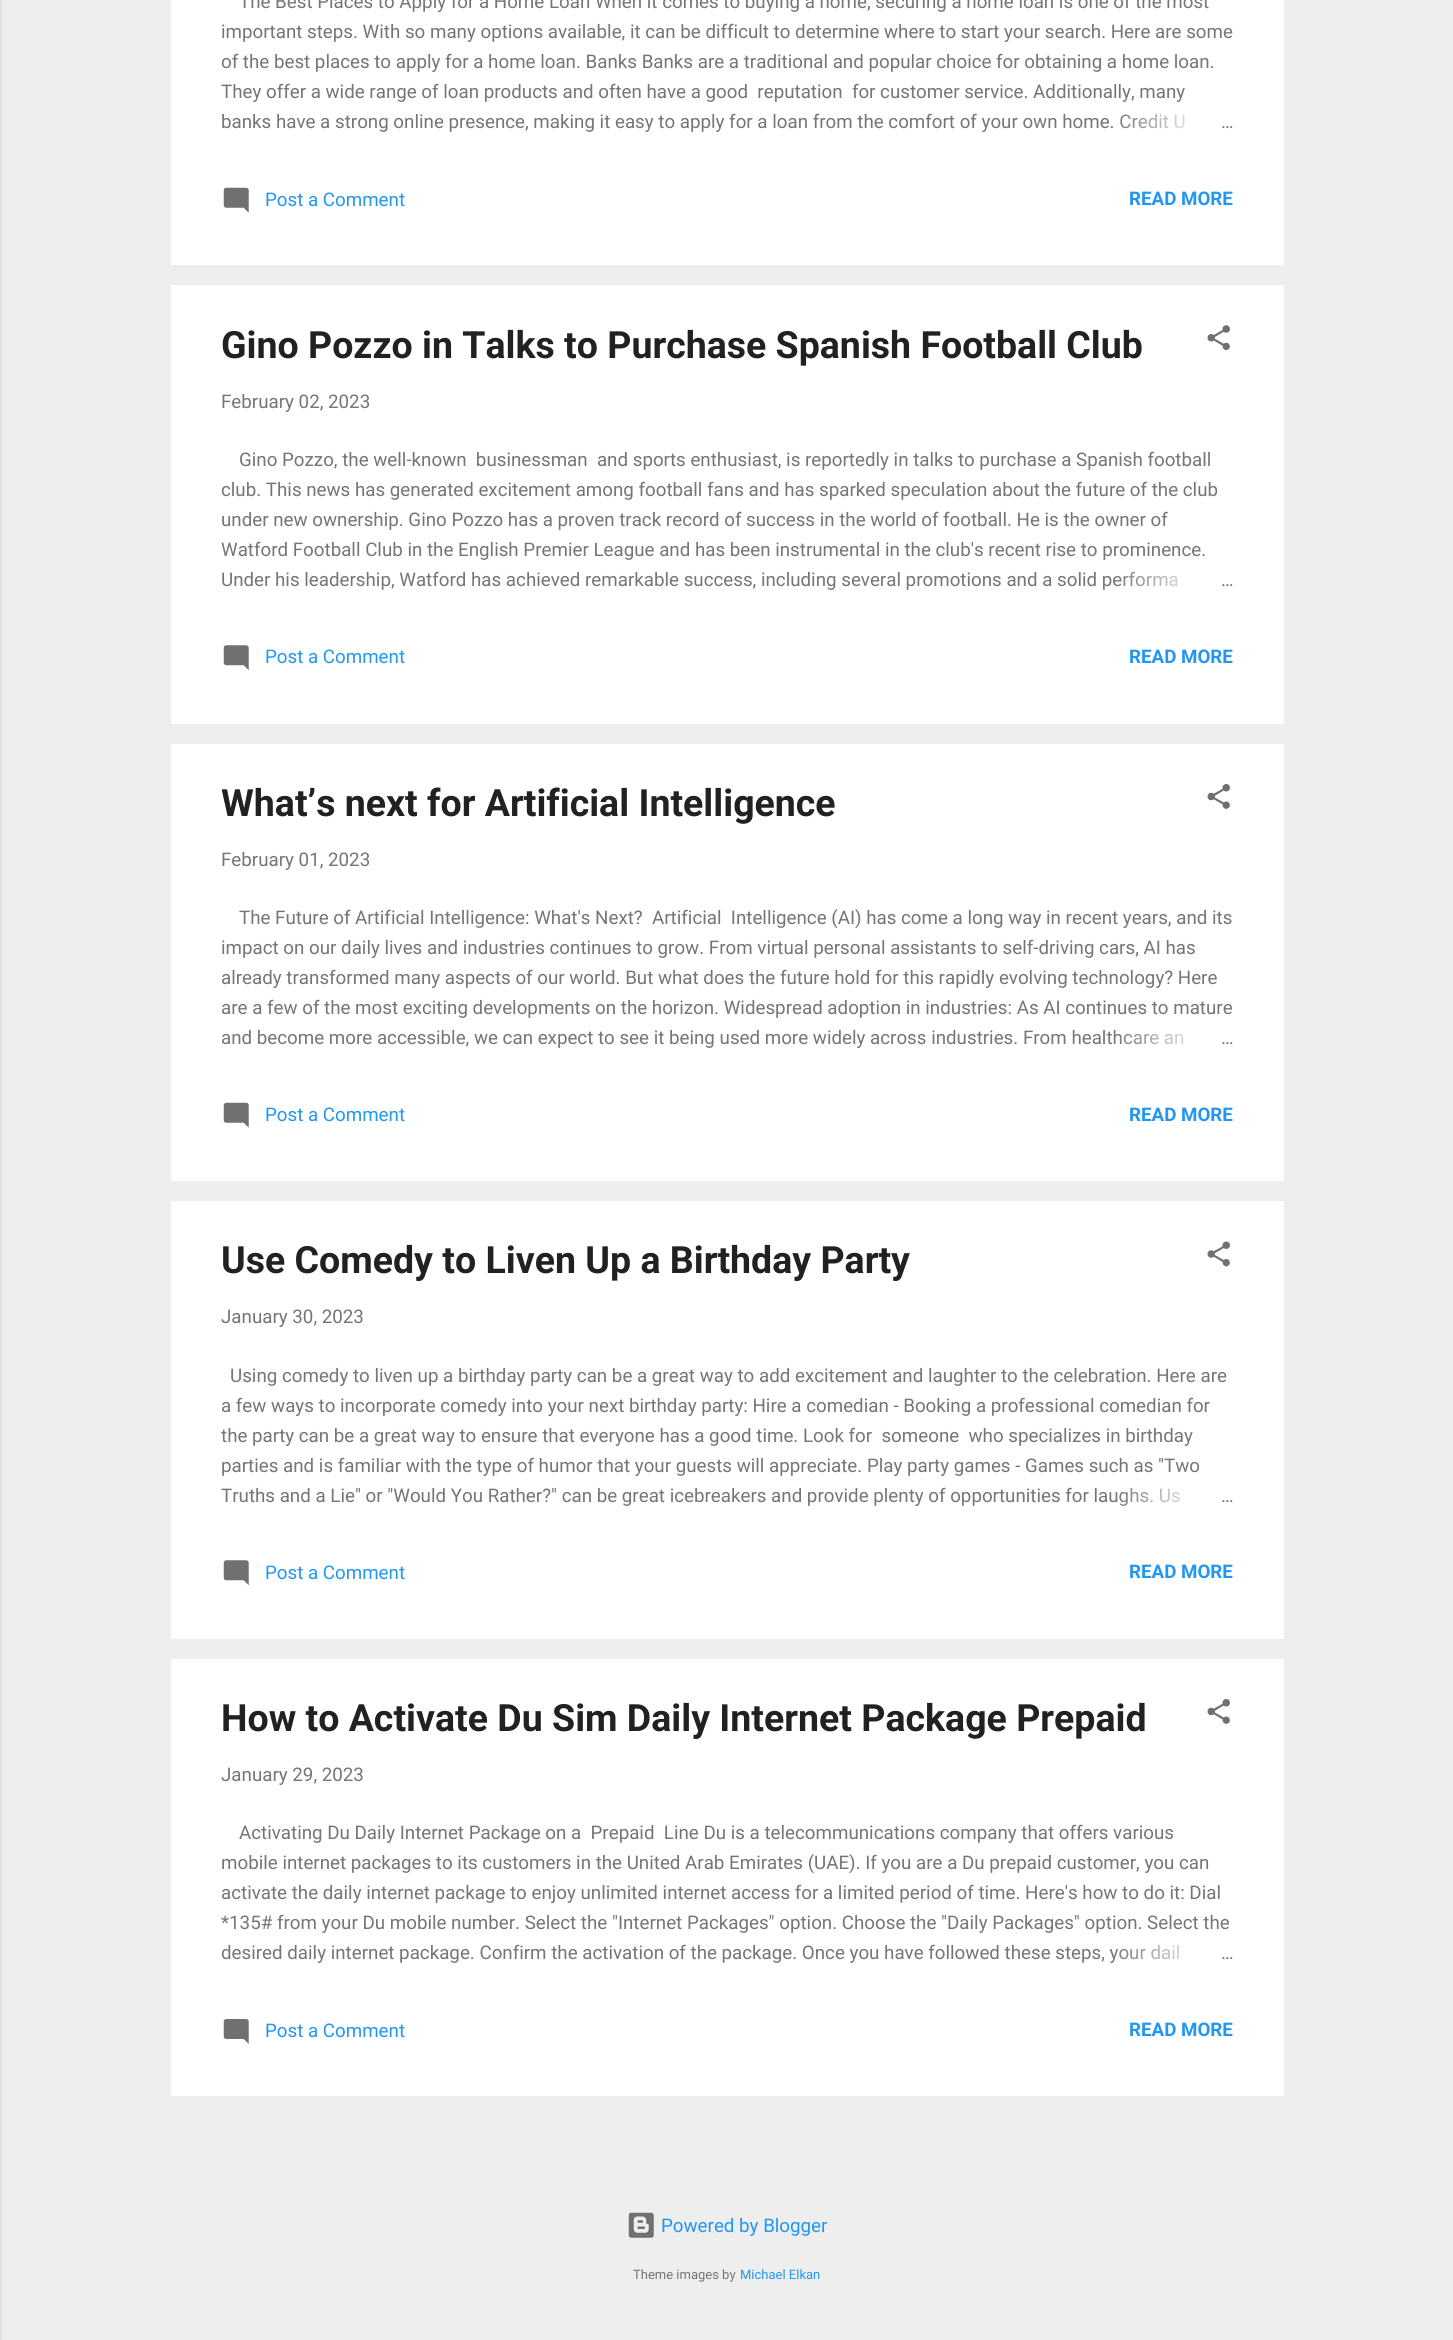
#include <cairo.h>
#include <math.h>
#include <stddef.h>


static void set_color(cairo_t *cr, unsigned color) {
    cairo_set_source_rgb(cr, (color >> 16) / 255.0, (color >> 8 & 255) / 255.0, (color & 255) / 255.0);
}

static void draw_text(cairo_t *cr, double x, double y, const char *s, const char *family, double size, int italic, int bold, unsigned color) {
    cairo_select_font_face(cr, family, italic ? CAIRO_FONT_SLANT_ITALIC : CAIRO_FONT_SLANT_NORMAL,
        bold ? CAIRO_FONT_WEIGHT_BOLD : CAIRO_FONT_WEIGHT_NORMAL);
    cairo_set_font_size(cr, size);
    set_color(cr, color);
    cairo_move_to(cr, x, y);
    cairo_show_text(cr, s);
}

static void fill_rect(cairo_t *cr, double x, double y, double w, double h, unsigned color) {
    set_color(cr, color);
    cairo_rectangle(cr, x, y, w, h);
    cairo_fill(cr);
}

static void rounded_rect(cairo_t *cr, double x, double y, double w, double h, double r) {
    cairo_new_sub_path(cr);
    cairo_arc(cr, x + w - r, y + h - r, r, 0, M_PI / 2);
    cairo_arc(cr, x + r, y + h - r, r, M_PI / 2, M_PI);
    cairo_arc(cr, x + r, y + r, r, M_PI, 1.5 * M_PI);
    cairo_arc(cr, x + w - r, y + r, r, 1.5 * M_PI, 2 * M_PI);
    cairo_close_path(cr);
}

static void draw_shadow(cairo_t *cr, double x, double y, double w, double h, double r, double blur, double alpha) {
    cairo_push_group_with_content(cr, CAIRO_CONTENT_ALPHA);
    cairo_set_operator(cr, CAIRO_OPERATOR_SOURCE);
    for (int i = 15; i >= -15 && fmin(w, h) + blur * i / 3 > 0; i -= 2) {
        double e = blur * i / 6;
        cairo_set_source_rgba(cr, 0, 0, 0, alpha * erfc((i - 1) / 8.5) / 2);
        rounded_rect(cr, x - e, y - e, w + 2 * e, h + 2 * e, fmax(0, fmin(r + e + blur * .6, fmin(w, h) / 2 + e)));
        cairo_fill(cr);
    }
    cairo_pattern_t *soft = cairo_pop_group(cr);
    cairo_mask(cr, soft);
    cairo_pattern_destroy(soft);
}

static void draw_image(cairo_t *cr, const char *path, double x, double y, double w, double h) {
    cairo_surface_t *image = cairo_image_surface_create_from_png(path);
    cairo_save(cr);
    cairo_set_source_surface(cr, image, x, y);
    cairo_rectangle(cr, x, y, w, h);
    cairo_fill(cr);
    cairo_restore(cr);
    cairo_surface_destroy(image);
}

int main(void) {
    cairo_surface_t *surface = cairo_image_surface_create(CAIRO_FORMAT_RGB24, 1453, 2340);
    cairo_t *cr = cairo_create(surface);
    cairo_font_options_t *options = cairo_font_options_create();
    cairo_font_options_set_hint_metrics(options, CAIRO_HINT_METRICS_OFF);
    cairo_font_options_set_hint_style(options, CAIRO_HINT_STYLE_NONE);
    cairo_set_font_options(cr, options);
    cairo_set_miter_limit(cr, 4);
    cairo_pattern_t *gradient;
    set_color(cr, 0xEEEEEE);
    cairo_paint(cr);
    set_color(cr, 0x000000);
    draw_shadow(cr, -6, 1, 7, 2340, 0, 2, 0.1);
    fill_rect(cr, 171, 0, 1113, 265, 0xFFFFFF);
    draw_text(cr, 239, 8, "The Best Places to Apply for a Home Loan When it comes to buying a home, securing a home loan is one of the most", "Roboto", 18.75, 0, 0, 0x757575);
    draw_text(cr, 221, 38, "important steps. With so many options available, it can be difficult to determine where to start your search. Here are some", "Roboto", 18.75, 0, 0, 0x757575);
    draw_text(cr, 221, 68, "of the best places to apply for a home loan. Banks Banks are a traditional and popular choice for obtaining a home loan.", "Roboto", 18.75, 0, 0, 0x757575);
    draw_text(cr, 221, 98, "They offer a wide range of loan products and often have a good  reputation  for customer service. Additionally, many", "Roboto", 18.75, 0, 0, 0x757575);
    draw_text(cr, 221, 128, "banks have a strong online presence, making it easy to apply for a loan from the comfort of your own home. Credit U", "Roboto", 18.75, 0, 0, 0x757575);
    gradient = cairo_pattern_create_linear(1234, 123, 1114, 123);
    cairo_pattern_add_color_stop_rgba(gradient, 0, 1, 1, 1, 1);
    cairo_pattern_add_color_stop_rgba(gradient, 0.2, 1, 1, 1, 1);
    cairo_pattern_add_color_stop_rgba(gradient, 1, 1, 1, 1, 0);
    cairo_set_source(cr, gradient);
    cairo_pattern_destroy(gradient);
    cairo_rectangle(cr, 1120, 113, 65, 16);
    cairo_fill(cr);
    draw_text(cr, 1221, 128, "…", "Roboto", 18.75, 0, 0, 0x757575);
    draw_image(cr, "assets/img1.png", 223, 187, 26, 26);
    draw_text(cr, 265, 206, "Post a Comment", "Roboto", 18.75, 0, 0, 0x2196F3);
    draw_text(cr, 1129, 205, "READ MORE", "Roboto", 18.75, 0, 1, 0x2196F3);
    fill_rect(cr, 171, 285, 1113, 439, 0xFFFFFF);
    draw_text(cr, 221, 358, "Gino Pozzo in Talks to Purchase Spanish Football Club", "Roboto", 37.5, 0, 1, 0x212121);
    draw_image(cr, "assets/img2.png", 1207, 325, 23, 26);
    draw_text(cr, 221, 408, "February 02, 2023", "Roboto", 18.75, 0, 0, 0x757575);
    draw_text(cr, 239, 466, "Gino Pozzo, the well-known  businessman  and sports enthusiast, is reportedly in talks to purchase a Spanish football", "Roboto", 18.75, 0, 0, 0x757575);
    draw_text(cr, 221, 496, "club. This news has generated excitement among football fans and has sparked speculation about the future of the club", "Roboto", 18.75, 0, 0, 0x757575);
    draw_text(cr, 221, 526, "under new ownership. Gino Pozzo has a proven track record of success in the world of football. He is the owner of", "Roboto", 18.75, 0, 0, 0x757575);
    draw_text(cr, 221, 556, "Watford Football Club in the English Premier League and has been instrumental in the club's recent rise to prominence.", "Roboto", 18.75, 0, 0, 0x757575);
    draw_text(cr, 221, 586, "Under his leadership, Watford has achieved remarkable success, including several promotions and a solid performa", "Roboto", 18.75, 0, 0, 0x757575);
    gradient = cairo_pattern_create_linear(1234, 580, 1114, 580);
    cairo_pattern_add_color_stop_rgba(gradient, 0, 1, 1, 1, 1);
    cairo_pattern_add_color_stop_rgba(gradient, 0.2, 1, 1, 1, 1);
    cairo_pattern_add_color_stop_rgba(gradient, 1, 1, 1, 1, 0);
    cairo_set_source(cr, gradient);
    cairo_pattern_destroy(gradient);
    cairo_rectangle(cr, 1116, 571, 62, 16);
    cairo_fill(cr);
    draw_text(cr, 1221, 586, "…", "Roboto", 18.75, 0, 0, 0x757575);
    draw_image(cr, "assets/img3.png", 223, 645, 26, 25);
    draw_text(cr, 265, 663, "Post a Comment", "Roboto", 18.75, 0, 0, 0x2196F3);
    draw_text(cr, 1129, 663, "READ MORE", "Roboto", 18.75, 0, 1, 0x2196F3);
    fill_rect(cr, 171, 744, 1113, 437, 0xFFFFFF);
    draw_text(cr, 221, 816, "What’s next for Artificial Intelligence", "Roboto", 37.5, 0, 1, 0x212121);
    draw_image(cr, "assets/img4.png", 1207, 784, 23, 25);
    draw_text(cr, 221, 866, "February 01, 2023", "Roboto", 18.75, 0, 0, 0x757575);
    draw_text(cr, 239, 924, "The Future of Artificial Intelligence: What's Next?  Artificial  Intelligence (AI) has come a long way in recent years, and its", "Roboto", 18.75, 0, 0, 0x757575);
    draw_text(cr, 221, 954, "impact on our daily lives and industries continues to grow. From virtual personal assistants to self-driving cars, AI has", "Roboto", 18.75, 0, 0, 0x757575);
    draw_text(cr, 221, 984, "already transformed many aspects of our world. But what does the future hold for this rapidly evolving technology? Here", "Roboto", 18.75, 0, 0, 0x757575);
    draw_text(cr, 221, 1014, "are a few of the most exciting developments on the horizon. Widespread adoption in industries: As AI continues to mature", "Roboto", 18.75, 0, 0, 0x757575);
    draw_text(cr, 221, 1044, "and become more accessible, we can expect to see it being used more widely across industries. From healthcare an", "Roboto", 18.75, 0, 0, 0x757575);
    gradient = cairo_pattern_create_linear(1234, 1038, 1114, 1038);
    cairo_pattern_add_color_stop_rgba(gradient, 0, 1, 1, 1, 1);
    cairo_pattern_add_color_stop_rgba(gradient, 0.2, 1, 1, 1, 1);
    cairo_pattern_add_color_stop_rgba(gradient, 1, 1, 1, 1, 0);
    cairo_set_source(cr, gradient);
    cairo_pattern_destroy(gradient);
    cairo_rectangle(cr, 1116, 1033, 67, 12);
    cairo_fill(cr);
    draw_text(cr, 1221, 1044, "…", "Roboto", 18.75, 0, 0, 0x757575);
    draw_image(cr, "assets/img1.png", 223, 1102, 26, 26);
    draw_text(cr, 265, 1121, "Post a Comment", "Roboto", 18.75, 0, 0, 0x2196F3);
    draw_text(cr, 1129, 1121, "READ MORE", "Roboto", 18.75, 0, 1, 0x2196F3);
    fill_rect(cr, 171, 1201, 1113, 438, 0xFFFFFF);
    draw_text(cr, 221, 1273, "Use Comedy to Liven Up a Birthday Party", "Roboto", 37.5, 0, 1, 0x212121);
    draw_image(cr, "assets/img5.png", 1207, 1241, 23, 26);
    draw_text(cr, 221, 1323, "January 30, 2023", "Roboto", 18.75, 0, 0, 0x757575);
    draw_text(cr, 230, 1382, "Using comedy to liven up a birthday party can be a great way to add excitement and laughter to the celebration. Here are", "Roboto", 18.75, 0, 0, 0x757575);
    draw_text(cr, 221, 1412, "a few ways to incorporate comedy into your next birthday party: Hire a comedian - Booking a professional comedian for", "Roboto", 18.75, 0, 0, 0x757575);
    draw_text(cr, 221, 1442, "the party can be a great way to ensure that everyone has a good time. Look for  someone  who specializes in birthday", "Roboto", 18.75, 0, 0, 0x757575);
    draw_text(cr, 221, 1472, "parties and is familiar with the type of humor that your guests will appreciate. Play party games - Games such as \"Two", "Roboto", 18.75, 0, 0, 0x757575);
    draw_text(cr, 221, 1502, "Truths and a Lie\" or \"Would You Rather?\" can be great icebreakers and provide plenty of opportunities for laughs. Us", "Roboto", 18.75, 0, 0, 0x757575);
    gradient = cairo_pattern_create_linear(1234, 1495, 1114, 1495);
    cairo_pattern_add_color_stop_rgba(gradient, 0, 1, 1, 1, 1);
    cairo_pattern_add_color_stop_rgba(gradient, 0.2, 1, 1, 1, 1);
    cairo_pattern_add_color_stop_rgba(gradient, 1, 1, 1, 1, 0);
    cairo_set_source(cr, gradient);
    cairo_pattern_destroy(gradient);
    cairo_rectangle(cr, 1116, 1488, 64, 18);
    cairo_fill(cr);
    draw_text(cr, 1221, 1502, "…", "Roboto", 18.75, 0, 0, 0x757575);
    draw_image(cr, "assets/img3.png", 223, 1560, 26, 25);
    draw_text(cr, 265, 1579, "Post a Comment", "Roboto", 18.75, 0, 0, 0x2196F3);
    draw_text(cr, 1129, 1578, "READ MORE", "Roboto", 18.75, 0, 1, 0x2196F3);
    fill_rect(cr, 171, 1659, 1113, 437, 0xFFFFFF);
    draw_text(cr, 221, 1731, "How to Activate Du Sim Daily Internet Package Prepaid", "Roboto", 37.5, 0, 1, 0x212121);
    draw_image(cr, "assets/img6.png", 1207, 1699, 23, 25);
    draw_text(cr, 221, 1781, "January 29, 2023", "Roboto", 18.75, 0, 0, 0x757575);
    draw_text(cr, 239, 1839, "Activating Du Daily Internet Package on a  Prepaid  Line Du is a telecommunications company that offers various", "Roboto", 18.75, 0, 0, 0x757575);
    draw_text(cr, 221, 1869, "mobile internet packages to its customers in the United Arab Emirates (UAE). If you are a Du prepaid customer, you can", "Roboto", 18.75, 0, 0, 0x757575);
    draw_text(cr, 221, 1899, "activate the daily internet package to enjoy unlimited internet access for a limited period of time. Here's how to do it: Dial", "Roboto", 18.75, 0, 0, 0x757575);
    draw_text(cr, 221, 1929, "*135# from your Du mobile number. Select the \"Internet Packages\" option. Choose the \"Daily Packages\" option. Select the", "Roboto", 18.75, 0, 0, 0x757575);
    draw_text(cr, 221, 1959, "desired daily internet package. Confirm the activation of the package. Once you have followed these steps, your dail", "Roboto", 18.75, 0, 0, 0x757575);
    gradient = cairo_pattern_create_linear(1234, 1954, 1114, 1954);
    cairo_pattern_add_color_stop_rgba(gradient, 0, 1, 1, 1, 1);
    cairo_pattern_add_color_stop_rgba(gradient, 0.2, 1, 1, 1, 1);
    cairo_pattern_add_color_stop_rgba(gradient, 1, 1, 1, 1, 0);
    cairo_set_source(cr, gradient);
    cairo_pattern_destroy(gradient);
    cairo_rectangle(cr, 1116, 1944, 63, 16);
    cairo_fill(cr);
    draw_text(cr, 1221, 1959, "…", "Roboto", 18.75, 0, 0, 0x757575);
    draw_image(cr, "assets/img7.png", 223, 2019, 26, 25);
    draw_text(cr, 265, 2037, "Post a Comment", "Roboto", 18.75, 0, 0, 0x2196F3);
    draw_text(cr, 1129, 2036, "READ MORE", "Roboto", 18.75, 0, 1, 0x2196F3);
    draw_image(cr, "assets/img8.png", 628, 2212, 26, 26);
    draw_text(cr, 661, 2232, "Powered by Blogger", "Roboto", 18.75, 0, 0, 0x2196F3);
    draw_text(cr, 633, 2279, "Theme images by", "Roboto", 13, 0, 0, 0x757575);
    draw_text(cr, 740, 2279, "Michael Elkan", "Roboto", 13, 0, 0, 0x2196F3);
    cairo_surface_write_to_png(surface, "output.png");
    cairo_font_options_destroy(options);
    cairo_destroy(cr);
    cairo_surface_destroy(surface);
    return 0;
}
